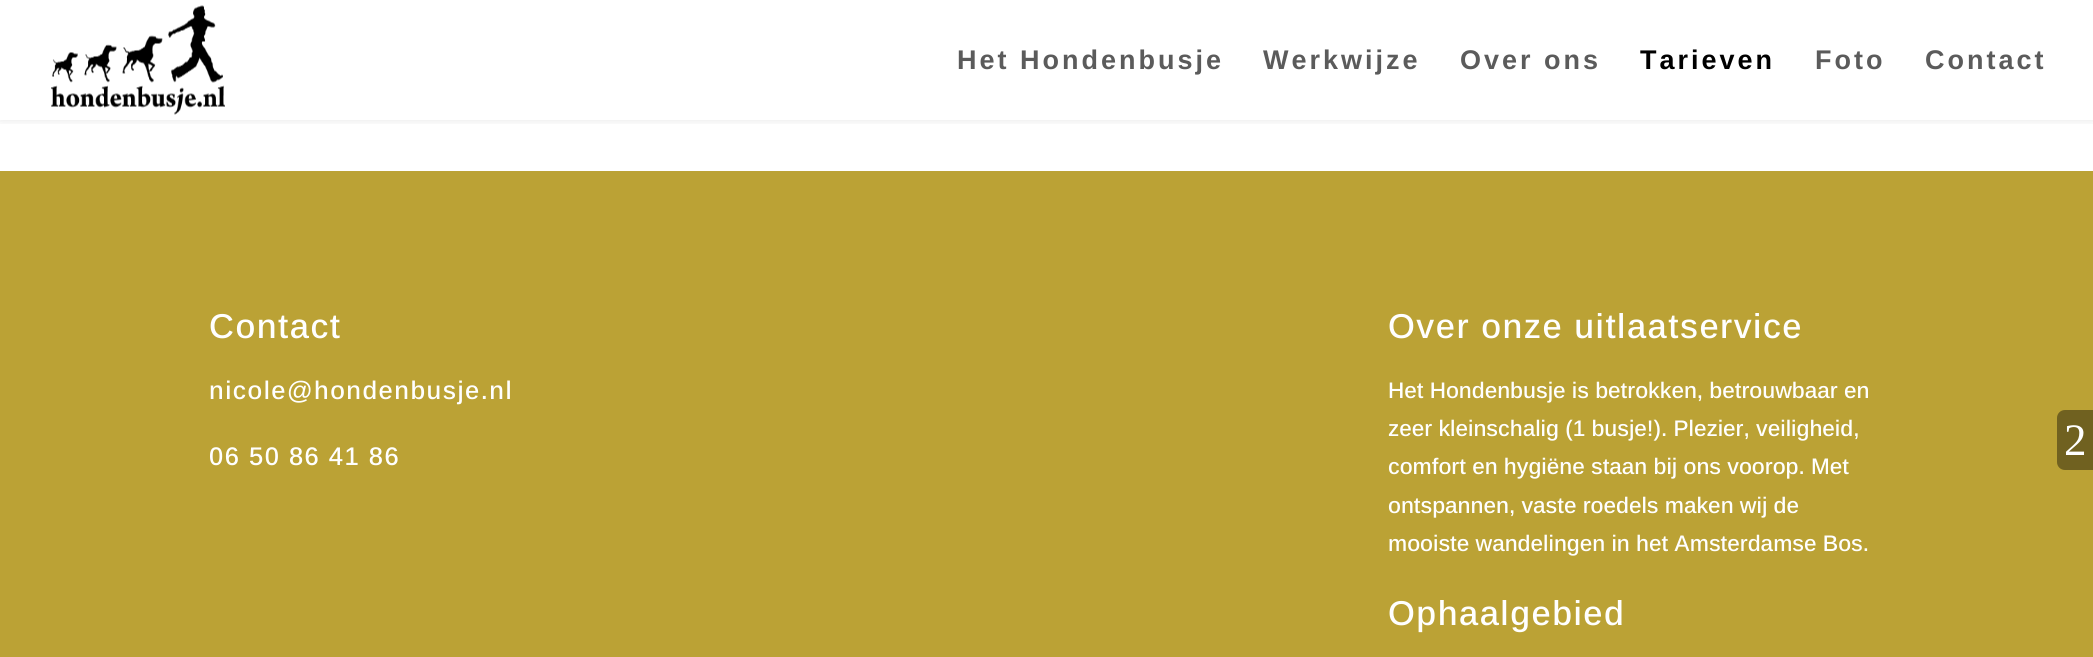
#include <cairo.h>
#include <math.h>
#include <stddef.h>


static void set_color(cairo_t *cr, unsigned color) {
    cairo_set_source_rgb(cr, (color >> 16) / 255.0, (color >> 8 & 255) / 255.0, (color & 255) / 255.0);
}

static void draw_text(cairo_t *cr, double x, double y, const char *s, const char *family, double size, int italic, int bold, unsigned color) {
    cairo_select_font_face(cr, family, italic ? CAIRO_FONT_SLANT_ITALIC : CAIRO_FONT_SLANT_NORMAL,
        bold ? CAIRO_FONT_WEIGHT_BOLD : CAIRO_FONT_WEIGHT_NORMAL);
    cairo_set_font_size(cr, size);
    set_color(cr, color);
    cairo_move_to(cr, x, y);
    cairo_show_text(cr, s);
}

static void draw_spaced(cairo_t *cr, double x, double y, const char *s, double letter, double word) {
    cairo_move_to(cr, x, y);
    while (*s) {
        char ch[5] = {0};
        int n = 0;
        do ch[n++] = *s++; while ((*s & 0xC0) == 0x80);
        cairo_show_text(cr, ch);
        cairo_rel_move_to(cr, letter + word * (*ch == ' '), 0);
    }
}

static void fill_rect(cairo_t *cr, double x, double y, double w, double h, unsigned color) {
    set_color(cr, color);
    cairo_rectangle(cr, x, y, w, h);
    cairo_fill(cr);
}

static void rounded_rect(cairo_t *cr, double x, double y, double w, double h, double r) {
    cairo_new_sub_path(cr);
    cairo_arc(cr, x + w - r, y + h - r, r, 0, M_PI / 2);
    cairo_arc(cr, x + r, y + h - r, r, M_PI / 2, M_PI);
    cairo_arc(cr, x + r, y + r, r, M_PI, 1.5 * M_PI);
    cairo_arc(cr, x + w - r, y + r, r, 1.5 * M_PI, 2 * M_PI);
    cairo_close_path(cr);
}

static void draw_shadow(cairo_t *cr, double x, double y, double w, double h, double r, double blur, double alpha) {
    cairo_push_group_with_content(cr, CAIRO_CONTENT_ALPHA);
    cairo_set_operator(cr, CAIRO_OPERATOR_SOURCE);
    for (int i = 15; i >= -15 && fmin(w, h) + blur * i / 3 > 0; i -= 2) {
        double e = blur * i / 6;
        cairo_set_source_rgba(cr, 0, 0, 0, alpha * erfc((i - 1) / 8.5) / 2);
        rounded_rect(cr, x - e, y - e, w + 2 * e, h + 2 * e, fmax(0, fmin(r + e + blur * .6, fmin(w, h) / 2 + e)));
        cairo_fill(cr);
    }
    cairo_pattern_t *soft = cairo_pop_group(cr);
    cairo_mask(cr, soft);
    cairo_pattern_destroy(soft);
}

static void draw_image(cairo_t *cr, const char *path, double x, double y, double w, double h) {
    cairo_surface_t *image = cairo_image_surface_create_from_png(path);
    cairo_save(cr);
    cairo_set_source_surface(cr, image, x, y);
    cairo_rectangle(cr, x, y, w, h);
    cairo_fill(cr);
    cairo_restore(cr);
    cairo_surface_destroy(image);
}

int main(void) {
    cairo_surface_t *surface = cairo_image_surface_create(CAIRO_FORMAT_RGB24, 2093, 657);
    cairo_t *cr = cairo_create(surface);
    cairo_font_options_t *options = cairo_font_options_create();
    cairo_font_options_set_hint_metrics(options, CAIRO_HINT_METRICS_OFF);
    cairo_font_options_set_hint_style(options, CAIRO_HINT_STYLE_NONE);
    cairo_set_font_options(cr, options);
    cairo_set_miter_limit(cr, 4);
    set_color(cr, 0xFFFFFF);
    cairo_paint(cr);
    cairo_save(cr);
    cairo_rectangle(cr, 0, 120, 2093, 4);
    cairo_clip(cr);
    set_color(cr, 0x000000);
    draw_shadow(cr, 0, 0, 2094, 120, 0, 5, 0.1);
    cairo_restore(cr);
    draw_image(cr, "assets/img1.png", 51, 5, 174, 110);
    cairo_select_font_face(cr, "Arimo", CAIRO_FONT_SLANT_NORMAL, CAIRO_FONT_WEIGHT_BOLD);
    cairo_set_font_size(cr, 27);
    set_color(cr, 0x5B5B5B);
    draw_spaced(cr, 957, 69, "Het Hondenbusje", 3, 0);
    draw_spaced(cr, 1263, 69, "Werkwijze", 3, 0);
    draw_spaced(cr, 1460, 69, "Over ons", 3, 0);
    set_color(cr, 0x000000);
    draw_spaced(cr, 1640, 69, "Tarieven", 3, 0);
    set_color(cr, 0x5B5B5B);
    draw_spaced(cr, 1815, 69, "Foto", 3, 0);
    draw_spaced(cr, 1925, 69, "Contact", 3, 0);
    fill_rect(cr, 0, 171, 2093, 486, 0xBBA235);
    cairo_select_font_face(cr, "Arimo Medium", CAIRO_FONT_SLANT_NORMAL, CAIRO_FONT_WEIGHT_NORMAL);
    cairo_set_font_size(cr, 34.5);
    set_color(cr, 0xFFFFFF);
    draw_spaced(cr, 209, 338, "Contact", 1.5, 0);
    cairo_set_font_size(cr, 25.5);
    draw_spaced(cr, 209, 399, "nicole@hondenbusje.nl", 1.5, 0);
    draw_spaced(cr, 209, 465, "06 50 86 41 86", 1.5, 0);
    cairo_set_font_size(cr, 34.5);
    draw_spaced(cr, 1388, 338, "Over onze uitlaatservice", 1.5, 0);
    draw_text(cr, 1388, 398, "Het Hondenbusje is betrokken, betrouwbaar en", "Arimo Medium", 22.5, 0, 0, 0xFFFFFF);
    draw_text(cr, 1388, 436, "zeer kleinschalig (1 busje!). Plezier, veiligheid,", "Arimo Medium", 22.5, 0, 0, 0xFFFFFF);
    draw_text(cr, 1388, 474, "comfort en hygiëne staan bij ons voorop. Met", "Arimo Medium", 22.5, 0, 0, 0xFFFFFF);
    draw_text(cr, 1388, 513, "ontspannen, vaste roedels maken wij de", "Arimo Medium", 22.5, 0, 0, 0xFFFFFF);
    draw_text(cr, 1388, 551, "mooiste wandelingen in het Amsterdamse Bos.", "Arimo Medium", 22.5, 0, 0, 0xFFFFFF);
    cairo_set_font_size(cr, 34.5);
    draw_spaced(cr, 1388, 625, "Ophaalgebied", 1.5, 0);
    set_color(cr, 0x706120);
    cairo_new_path(cr);
    cairo_move_to(cr, 2065, 410);
    cairo_line_to(cr, 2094, 410);
    cairo_line_to(cr, 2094, 470);
    cairo_line_to(cr, 2065, 470);
    cairo_curve_to(cr, 2060.5, 470, 2057, 466.5, 2057, 462);
    cairo_line_to(cr, 2057, 418);
    cairo_curve_to(cr, 2057, 413.5, 2060.5, 410, 2065, 410);
    cairo_close_path(cr);
    cairo_fill(cr);
    draw_text(cr, 2064, 455, "2", "Liberation Serif", 45, 0, 0, 0xFFFFFF);
    cairo_surface_write_to_png(surface, "output.png");
    cairo_font_options_destroy(options);
    cairo_destroy(cr);
    cairo_surface_destroy(surface);
    return 0;
}
